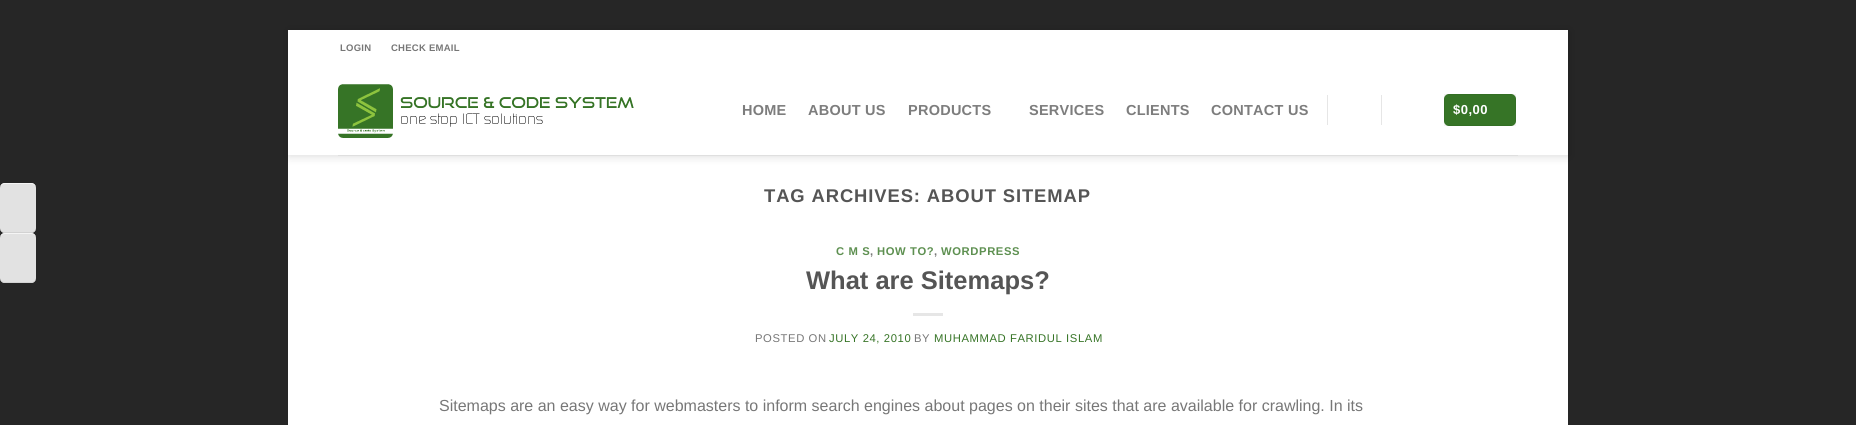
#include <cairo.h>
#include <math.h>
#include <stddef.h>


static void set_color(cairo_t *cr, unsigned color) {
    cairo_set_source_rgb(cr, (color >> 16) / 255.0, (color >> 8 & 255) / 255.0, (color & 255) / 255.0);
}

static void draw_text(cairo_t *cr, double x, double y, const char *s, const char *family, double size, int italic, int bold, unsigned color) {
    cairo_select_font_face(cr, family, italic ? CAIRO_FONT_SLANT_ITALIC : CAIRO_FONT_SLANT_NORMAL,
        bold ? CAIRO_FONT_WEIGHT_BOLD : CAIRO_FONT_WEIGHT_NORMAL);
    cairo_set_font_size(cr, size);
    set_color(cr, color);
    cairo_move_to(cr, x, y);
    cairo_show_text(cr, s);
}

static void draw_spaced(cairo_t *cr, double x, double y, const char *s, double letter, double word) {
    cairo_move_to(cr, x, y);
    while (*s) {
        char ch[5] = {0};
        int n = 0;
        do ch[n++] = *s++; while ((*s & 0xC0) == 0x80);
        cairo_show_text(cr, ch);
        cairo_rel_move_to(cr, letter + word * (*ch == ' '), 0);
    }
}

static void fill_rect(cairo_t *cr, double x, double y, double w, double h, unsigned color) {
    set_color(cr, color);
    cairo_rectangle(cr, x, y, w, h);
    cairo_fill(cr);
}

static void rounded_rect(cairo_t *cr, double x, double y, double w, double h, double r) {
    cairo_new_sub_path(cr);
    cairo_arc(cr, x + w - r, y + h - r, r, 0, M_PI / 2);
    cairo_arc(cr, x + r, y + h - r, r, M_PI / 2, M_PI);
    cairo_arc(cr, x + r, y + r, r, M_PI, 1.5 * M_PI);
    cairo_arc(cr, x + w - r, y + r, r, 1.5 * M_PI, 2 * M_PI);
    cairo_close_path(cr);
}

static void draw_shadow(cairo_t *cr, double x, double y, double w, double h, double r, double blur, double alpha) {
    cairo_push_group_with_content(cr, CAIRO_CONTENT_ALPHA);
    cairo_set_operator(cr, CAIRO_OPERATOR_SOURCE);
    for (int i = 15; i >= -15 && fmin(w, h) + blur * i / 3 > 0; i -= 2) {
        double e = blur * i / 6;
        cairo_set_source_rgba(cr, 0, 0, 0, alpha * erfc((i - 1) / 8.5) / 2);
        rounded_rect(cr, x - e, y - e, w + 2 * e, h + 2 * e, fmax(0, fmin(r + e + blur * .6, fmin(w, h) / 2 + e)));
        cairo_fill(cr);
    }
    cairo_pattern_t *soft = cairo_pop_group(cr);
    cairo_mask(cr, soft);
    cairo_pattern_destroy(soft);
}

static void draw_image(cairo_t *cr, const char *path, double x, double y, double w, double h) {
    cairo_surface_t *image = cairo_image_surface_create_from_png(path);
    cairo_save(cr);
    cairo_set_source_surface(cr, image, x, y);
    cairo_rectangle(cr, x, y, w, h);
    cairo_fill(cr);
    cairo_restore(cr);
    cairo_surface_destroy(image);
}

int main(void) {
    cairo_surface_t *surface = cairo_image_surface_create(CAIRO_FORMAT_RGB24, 1856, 425);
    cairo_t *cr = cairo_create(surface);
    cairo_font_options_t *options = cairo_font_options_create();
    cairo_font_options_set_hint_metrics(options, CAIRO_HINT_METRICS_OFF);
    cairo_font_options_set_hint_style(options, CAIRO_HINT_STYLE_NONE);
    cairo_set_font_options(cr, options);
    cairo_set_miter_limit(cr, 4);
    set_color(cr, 0x262626);
    cairo_paint(cr);
    set_color(cr, 0xE2E2E2);
    rounded_rect(cr, 0, 183, 36, 50, 5);
    cairo_fill(cr);
    set_color(cr, 0xF5F5F5);
    cairo_new_path(cr);
    cairo_move_to(cr, 5, 183);
    cairo_curve_to(cr, 2, 183, 0, 185, 0, 188);
    cairo_curve_to(cr, 0, 186, 2, 184, 5, 184);
    cairo_line_to(cr, 31, 184);
    cairo_curve_to(cr, 34, 184, 36, 186, 36, 188);
    cairo_curve_to(cr, 36, 185, 34, 183, 31, 183);
    cairo_close_path(cr);
    cairo_fill(cr);
    set_color(cr, 0xD2D2D2);
    cairo_new_path(cr);
    cairo_move_to(cr, 31, 233);
    cairo_curve_to(cr, 34, 233, 36, 231, 36, 228);
    cairo_curve_to(cr, 36, 230, 34, 232, 31, 232);
    cairo_line_to(cr, 5, 232);
    cairo_curve_to(cr, 2, 232, 0, 230, 0, 228);
    cairo_curve_to(cr, 0, 231, 2, 233, 5, 233);
    cairo_close_path(cr);
    cairo_fill(cr);
    set_color(cr, 0xE2E2E2);
    rounded_rect(cr, 0, 233, 36, 50, 5);
    cairo_fill(cr);
    set_color(cr, 0xF5F5F5);
    cairo_new_path(cr);
    cairo_move_to(cr, 5, 233);
    cairo_curve_to(cr, 2, 233, 0, 235, 0, 238);
    cairo_curve_to(cr, 0, 236, 2, 234, 5, 234);
    cairo_line_to(cr, 31, 234);
    cairo_curve_to(cr, 34, 234, 36, 236, 36, 238);
    cairo_curve_to(cr, 36, 235, 34, 233, 31, 233);
    cairo_close_path(cr);
    cairo_fill(cr);
    set_color(cr, 0xD2D2D2);
    cairo_new_path(cr);
    cairo_move_to(cr, 31, 283);
    cairo_curve_to(cr, 34, 283, 36, 281, 36, 278);
    cairo_curve_to(cr, 36, 280, 34, 282, 31, 282);
    cairo_line_to(cr, 5, 282);
    cairo_curve_to(cr, 2, 282, 0, 280, 0, 278);
    cairo_curve_to(cr, 0, 281, 2, 283, 5, 283);
    cairo_close_path(cr);
    cairo_fill(cr);
    fill_rect(cr, 288, 30, 1280, 395, 0xFFFFFF);
    cairo_save(cr);
    cairo_set_fill_rule(cr, CAIRO_FILL_RULE_EVEN_ODD);
    cairo_new_path(cr);
    cairo_move_to(cr, 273, 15);
    cairo_line_to(cr, 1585, 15);
    cairo_line_to(cr, 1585, 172);
    cairo_line_to(cr, 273, 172);
    cairo_close_path(cr);
    cairo_move_to(cr, 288, 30);
    cairo_line_to(cr, 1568, 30);
    cairo_line_to(cr, 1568, 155);
    cairo_line_to(cr, 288, 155);
    cairo_close_path(cr);
    cairo_clip(cr);
    set_color(cr, 0x000000);
    draw_shadow(cr, 289, 31, 1280, 125, 0, 5, 0.15);
    cairo_restore(cr);
    cairo_select_font_face(cr, "Liberation Sans", CAIRO_FONT_SLANT_NORMAL, CAIRO_FONT_WEIGHT_BOLD);
    cairo_set_font_size(cr, 9.5);
    set_color(cr, 0x777777);
    draw_spaced(cr, 340, 51, "LOGIN", 0.25, 0);
    draw_spaced(cr, 391, 51, "CHECK EMAIL", 0.25, 0);
    draw_image(cr, "assets/img1.png", 338, 84, 296, 54);
    cairo_set_font_size(cr, 14.5);
    set_color(cr, 0x7D7D7D);
    draw_spaced(cr, 742, 115, "HOME", 0.25, 0);
    draw_spaced(cr, 808, 115, "ABOUT US", 0.25, 0);
    draw_spaced(cr, 908, 115, "PRODUCTS", 0.25, 0);
    draw_spaced(cr, 1029, 115, "SERVICES", 0.25, 0);
    draw_spaced(cr, 1126, 115, "CLIENTS", 0.25, 0);
    draw_spaced(cr, 1211, 115, "CONTACT US", 0.25, 0);
    fill_rect(cr, 1327, 95, 1, 30, 0xE6E6E6);
    fill_rect(cr, 1381, 95, 1, 30, 0xE6E6E6);
    set_color(cr, 0x367426);
    rounded_rect(cr, 1444, 94, 72, 32, 5);
    cairo_fill(cr);
    cairo_rectangle(cr, 1444.5, 94.5, 71, 31);
    cairo_set_source_rgba(cr, 0, 0, 0, 0.05);
    cairo_set_line_width(cr, 1);
    cairo_stroke(cr);
    cairo_set_font_size(cr, 13);
    set_color(cr, 0xFFFFFF);
    draw_spaced(cr, 1453, 114, "$0,00", 0.5, 0);
    fill_rect(cr, 338, 155, 1180, 1, 0xDFDFDF);
    cairo_set_font_size(cr, 18.4);
    set_color(cr, 0x555555);
    draw_spaced(cr, 764, 202, "TAG ARCHIVES: ABOUT SITEMAP", 0.9, 0);
    cairo_set_font_size(cr, 11.25);
    set_color(cr, 0x5E9051);
    draw_spaced(cr, 836, 255, "C M S", 0.6, 0);
    set_color(cr, 0x777777);
    draw_spaced(cr, 870, 255, ",", 0.6, 0);
    set_color(cr, 0x5E9051);
    draw_spaced(cr, 877, 255, "HOW TO?", 0.6, 0);
    set_color(cr, 0x777777);
    draw_spaced(cr, 934, 255, ",", 0.6, 0);
    set_color(cr, 0x5E9051);
    draw_spaced(cr, 941, 255, "WORDPRESS", 0.6, 0);
    draw_text(cr, 806, 289, "What are Sitemaps?", "Liberation Sans", 25.5, 0, 1, 0x555555);
    fill_rect(cr, 913, 313, 30, 3, 0xE6E6E6);
    cairo_select_font_face(cr, "Liberation Sans", CAIRO_FONT_SLANT_NORMAL, CAIRO_FONT_WEIGHT_NORMAL);
    cairo_set_font_size(cr, 11.25);
    set_color(cr, 0x777777);
    draw_spaced(cr, 755, 342, "POSTED ON", 0.6, 0);
    set_color(cr, 0x367426);
    draw_spaced(cr, 829, 342, "JULY 24, 2010", 0.6, 0);
    set_color(cr, 0x777777);
    draw_spaced(cr, 914, 342, "BY", 0.6, 0);
    set_color(cr, 0x367426);
    draw_spaced(cr, 934, 342, "MUHAMMAD FARIDUL ISLAM", 0.6, 0);
    draw_text(cr, 439, 411, "Sitemaps are an easy way for webmasters to inform search engines about pages on their sites that are available for crawling. In its", "Liberation Sans", 16, 0, 0, 0x777777);
    cairo_surface_write_to_png(surface, "output.png");
    cairo_font_options_destroy(options);
    cairo_destroy(cr);
    cairo_surface_destroy(surface);
    return 0;
}
